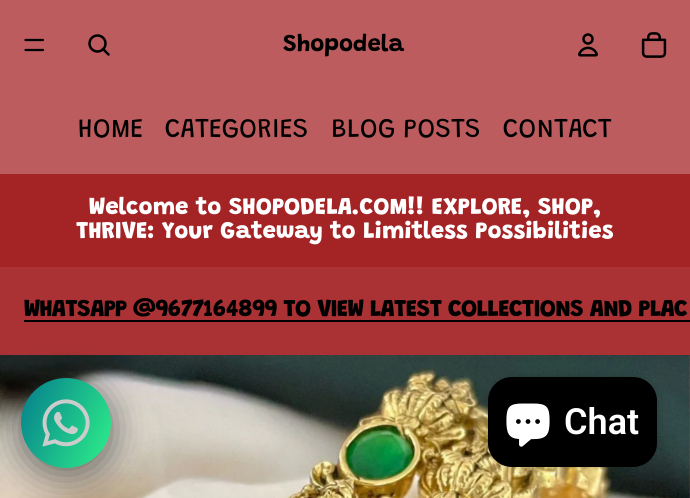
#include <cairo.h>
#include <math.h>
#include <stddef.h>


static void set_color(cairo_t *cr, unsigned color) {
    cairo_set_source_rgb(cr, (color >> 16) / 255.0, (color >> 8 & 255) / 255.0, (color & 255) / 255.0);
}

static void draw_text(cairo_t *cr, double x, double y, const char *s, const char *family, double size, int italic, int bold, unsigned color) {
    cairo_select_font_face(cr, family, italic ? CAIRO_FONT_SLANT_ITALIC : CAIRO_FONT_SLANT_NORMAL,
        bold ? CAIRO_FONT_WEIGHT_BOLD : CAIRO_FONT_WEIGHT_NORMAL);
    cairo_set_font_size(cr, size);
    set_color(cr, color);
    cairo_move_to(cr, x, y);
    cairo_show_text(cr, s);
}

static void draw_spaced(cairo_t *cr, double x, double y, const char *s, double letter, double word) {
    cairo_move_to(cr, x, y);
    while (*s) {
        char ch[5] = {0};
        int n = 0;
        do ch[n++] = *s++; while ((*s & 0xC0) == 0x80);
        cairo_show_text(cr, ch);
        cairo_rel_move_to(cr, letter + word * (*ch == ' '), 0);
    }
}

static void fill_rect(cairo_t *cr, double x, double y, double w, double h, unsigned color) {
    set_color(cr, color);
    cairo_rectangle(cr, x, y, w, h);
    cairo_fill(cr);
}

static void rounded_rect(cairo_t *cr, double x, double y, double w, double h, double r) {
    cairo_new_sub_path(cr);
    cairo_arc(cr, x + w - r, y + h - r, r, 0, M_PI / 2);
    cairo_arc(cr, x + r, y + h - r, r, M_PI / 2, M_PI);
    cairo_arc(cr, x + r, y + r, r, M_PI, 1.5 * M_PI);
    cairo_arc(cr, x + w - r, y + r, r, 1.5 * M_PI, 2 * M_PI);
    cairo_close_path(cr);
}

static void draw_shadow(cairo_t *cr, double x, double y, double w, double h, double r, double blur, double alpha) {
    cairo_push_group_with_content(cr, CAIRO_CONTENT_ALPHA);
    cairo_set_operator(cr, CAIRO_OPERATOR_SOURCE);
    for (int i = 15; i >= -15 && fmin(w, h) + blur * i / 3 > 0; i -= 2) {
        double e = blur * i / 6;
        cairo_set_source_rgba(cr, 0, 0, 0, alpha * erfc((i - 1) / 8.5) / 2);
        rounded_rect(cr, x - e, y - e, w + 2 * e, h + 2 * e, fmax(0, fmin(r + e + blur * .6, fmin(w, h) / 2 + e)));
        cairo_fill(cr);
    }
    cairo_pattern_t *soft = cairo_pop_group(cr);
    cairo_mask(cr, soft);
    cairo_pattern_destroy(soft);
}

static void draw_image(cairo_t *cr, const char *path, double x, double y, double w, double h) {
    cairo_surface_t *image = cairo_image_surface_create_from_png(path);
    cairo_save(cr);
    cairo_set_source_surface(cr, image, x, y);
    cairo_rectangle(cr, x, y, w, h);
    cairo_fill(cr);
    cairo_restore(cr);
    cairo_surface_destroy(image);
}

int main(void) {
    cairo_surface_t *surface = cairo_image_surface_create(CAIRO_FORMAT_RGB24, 690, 498);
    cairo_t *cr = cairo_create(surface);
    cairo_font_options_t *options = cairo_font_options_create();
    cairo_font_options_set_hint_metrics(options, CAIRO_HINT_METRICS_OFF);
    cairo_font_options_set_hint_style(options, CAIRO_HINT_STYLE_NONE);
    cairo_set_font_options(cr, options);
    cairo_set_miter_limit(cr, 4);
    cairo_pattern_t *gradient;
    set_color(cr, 0xBC5C5E);
    cairo_paint(cr);
    cairo_new_path(cr);
    cairo_move_to(cr, 25.5, 40);
    cairo_line_to(cr, 43, 40);
    cairo_move_to(cr, 25.5, 50);
    cairo_line_to(cr, 43, 50);
    set_color(cr, 0x000000);
    cairo_set_line_width(cr, 2.2);
    cairo_set_line_cap(cr, CAIRO_LINE_CAP_ROUND);
    cairo_stroke(cr);
    cairo_arc(cr, 97.5, 43.5, 8, 0, 2 * M_PI);
    cairo_set_line_width(cr, 2.5);
    cairo_set_line_cap(cr, CAIRO_LINE_CAP_BUTT);
    cairo_stroke(cr);
    cairo_new_path(cr);
    cairo_move_to(cr, 103, 49);
    cairo_line_to(cr, 108.5, 54.5);
    cairo_set_line_cap(cr, CAIRO_LINE_CAP_ROUND);
    cairo_set_line_join(cr, CAIRO_LINE_JOIN_ROUND);
    cairo_stroke(cr);
    draw_text(cr, 283, 51, "Shopodela", "Grandstander", 24, 0, 1, 0x000000);
    draw_image(cr, "assets/img1.png", 578, 33, 20, 24);
    draw_image(cr, "assets/img2.png", 641, 32, 26, 26);
    draw_text(cr, 78, 137, "HOME", "Grandstander", 27, 0, 0, 0x000000);
    draw_text(cr, 165, 137, "CATEGORIES", "Grandstander", 27, 0, 0, 0x000000);
    draw_text(cr, 331, 137, "BLOG POSTS", "Grandstander", 27, 0, 0, 0x000000);
    draw_text(cr, 503, 137, "CONTACT", "Grandstander", 27, 0, 0, 0x000000);
    fill_rect(cr, 0, 174, 690, 93, 0xA42325);
    draw_text(cr, 89, 214, "Welcome to SHOPODELA.COM!! EXPLORE, SHOP,", "Grandstander ExtraBold", 24, 0, 0, 0xFFFFFF);
    draw_text(cr, 76, 238, "THRIVE: Your Gateway to Limitless Possibilities", "Grandstander ExtraBold", 24, 0, 0, 0xFFFFFF);
    fill_rect(cr, 0, 267, 690, 89, 0xAA3234);
    set_color(cr, 0x000000);
    draw_spaced(cr, 24, 316, "WHATSAPP @9677164899 TO VIEW LATEST COLLECTIONS AND PLAC", -0.72, 0);
    fill_rect(cr, 24, 320, 666, 2, 0x000000);
    draw_image(cr, "assets/img3.png", 0, 355, 690, 143);
    set_color(cr, 0x020610);
    draw_shadow(cr, 21, 384, 90, 90, 45, 18, 0.5);
    gradient = cairo_pattern_create_linear(12, 398, 120, 448);
    cairo_pattern_add_color_stop_rgba(gradient, 0, 0.016, 0.486, 0.553, 1);
    cairo_pattern_add_color_stop_rgba(gradient, 1, 0.184, 0.949, 0.537, 1);
    cairo_set_source(cr, gradient);
    cairo_pattern_destroy(gradient);
    cairo_arc(cr, 66, 423, 45, 0, 2 * M_PI);
    cairo_fill(cr);
    draw_image(cr, "assets/img4.png", 42, 399, 48, 48);
    set_color(cr, 0x000000);
    draw_shadow(cr, 488, 377, 169, 90, 24, 4, 0.15);
    set_color(cr, 0x000000);
    rounded_rect(cr, 488, 377, 169, 90, 24);
    cairo_fill(cr);
    draw_image(cr, "assets/img5.png", 506, 403, 44, 44);
    draw_text(cr, 564, 434, "Chat", "Roboto SemiBold", 36, 0, 0, 0xFFFFFF);
    cairo_surface_write_to_png(surface, "output.png");
    cairo_font_options_destroy(options);
    cairo_destroy(cr);
    cairo_surface_destroy(surface);
    return 0;
}
